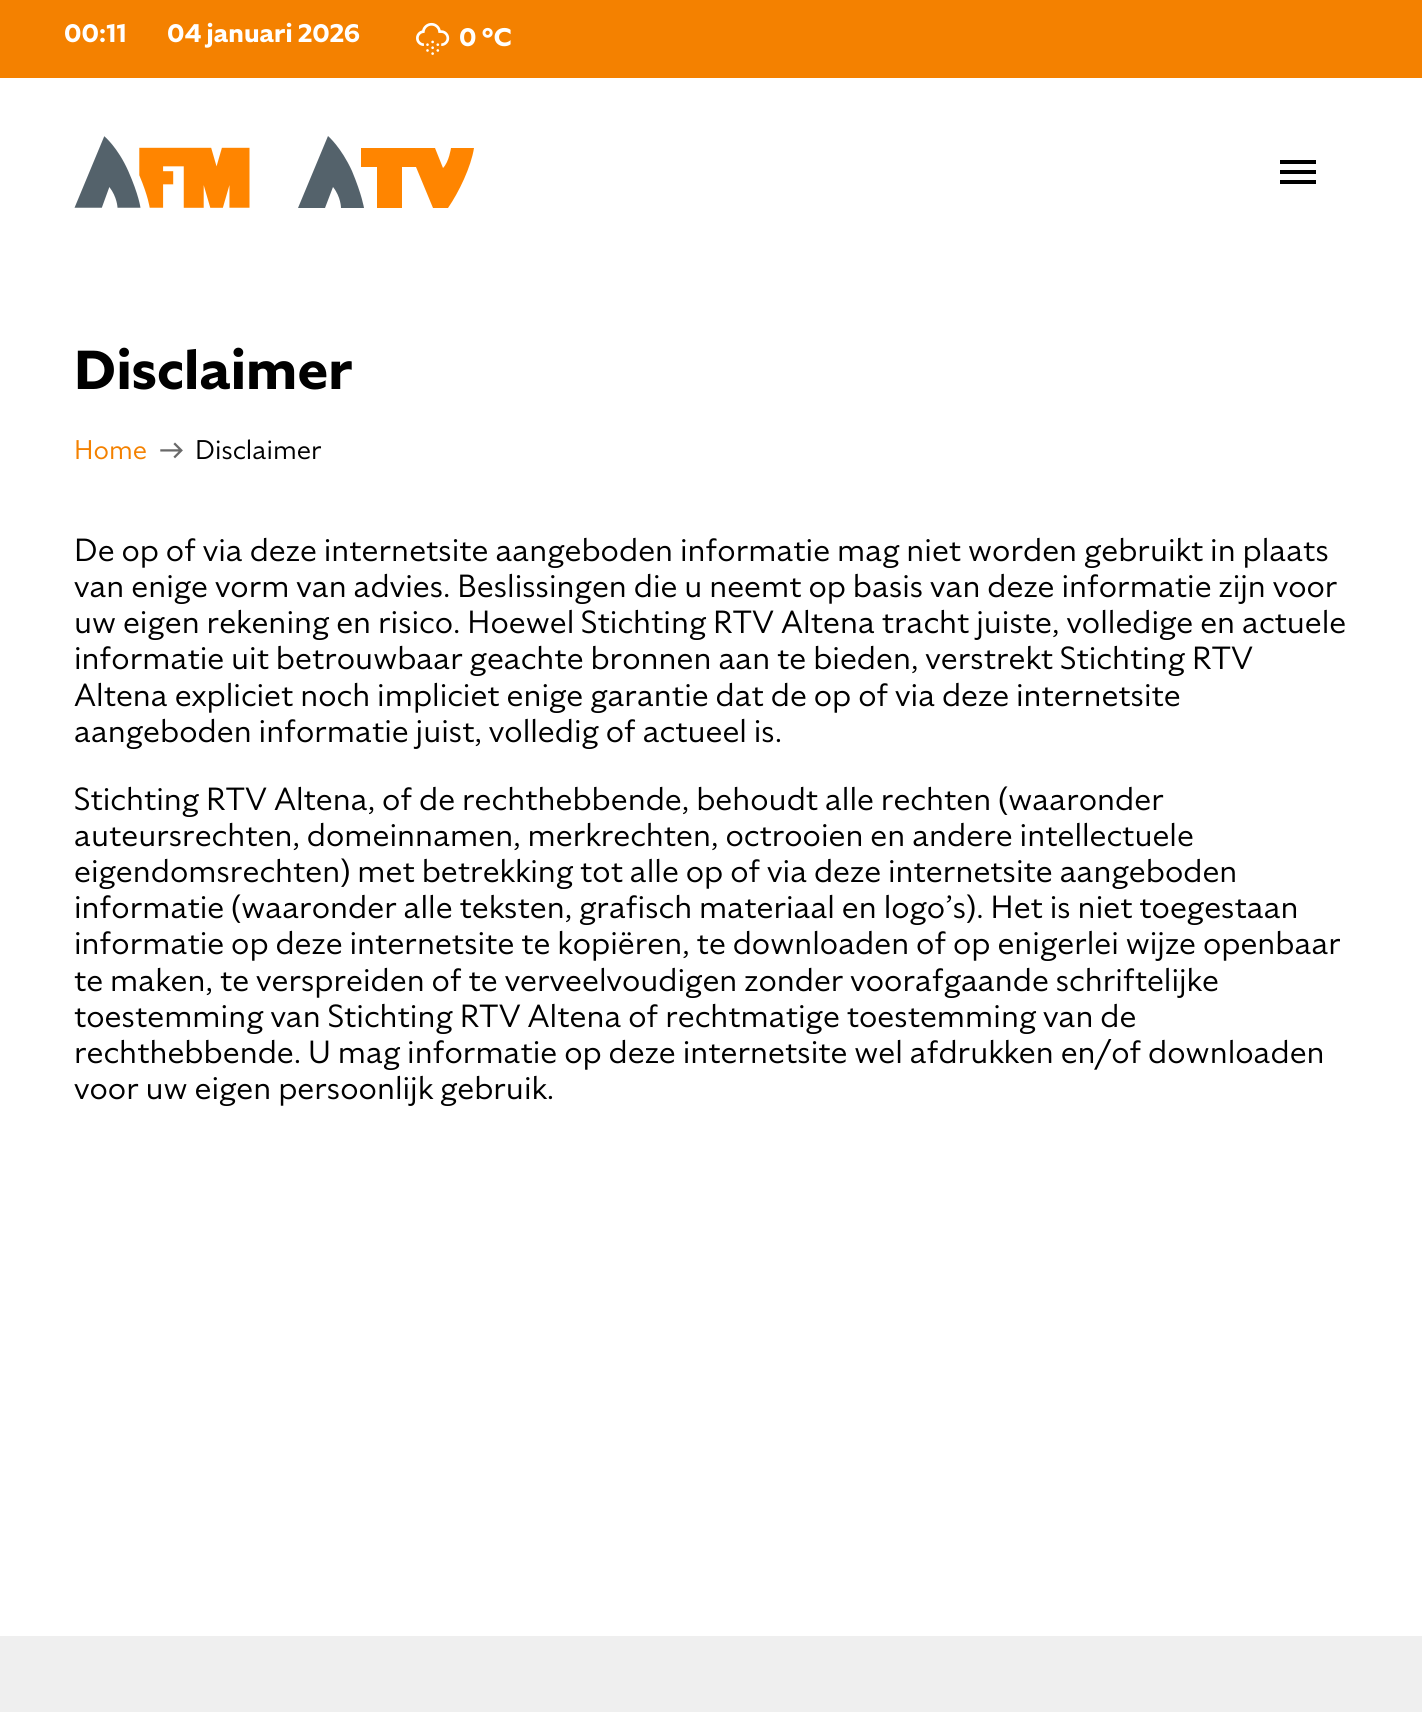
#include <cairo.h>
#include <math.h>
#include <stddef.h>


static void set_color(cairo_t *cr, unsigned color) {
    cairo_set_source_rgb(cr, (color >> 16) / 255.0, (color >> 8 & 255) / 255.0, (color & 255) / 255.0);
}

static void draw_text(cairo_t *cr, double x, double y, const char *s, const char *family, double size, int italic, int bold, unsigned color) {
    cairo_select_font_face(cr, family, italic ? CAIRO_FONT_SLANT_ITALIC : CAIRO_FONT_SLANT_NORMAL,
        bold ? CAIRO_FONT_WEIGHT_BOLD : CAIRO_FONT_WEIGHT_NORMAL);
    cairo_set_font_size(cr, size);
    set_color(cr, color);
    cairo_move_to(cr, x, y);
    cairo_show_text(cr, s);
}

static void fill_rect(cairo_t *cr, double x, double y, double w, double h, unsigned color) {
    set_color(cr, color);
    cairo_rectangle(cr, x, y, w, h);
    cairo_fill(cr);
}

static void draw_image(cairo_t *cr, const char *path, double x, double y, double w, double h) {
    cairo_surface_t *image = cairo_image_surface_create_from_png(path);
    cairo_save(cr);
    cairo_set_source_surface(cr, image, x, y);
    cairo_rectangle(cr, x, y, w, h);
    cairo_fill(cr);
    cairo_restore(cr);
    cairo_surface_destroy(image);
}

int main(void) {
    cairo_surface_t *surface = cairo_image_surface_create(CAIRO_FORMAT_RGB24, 1422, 1712);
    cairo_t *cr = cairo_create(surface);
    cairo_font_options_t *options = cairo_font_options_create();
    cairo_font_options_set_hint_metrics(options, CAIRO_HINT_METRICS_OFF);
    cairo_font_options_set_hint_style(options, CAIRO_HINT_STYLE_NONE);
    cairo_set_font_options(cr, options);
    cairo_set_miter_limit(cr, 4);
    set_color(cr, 0xEFEFEF);
    cairo_paint(cr);
    fill_rect(cr, 0, 0, 1422, 78, 0xF48100);
    draw_text(cr, 64, 42, "00:11", "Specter", 25.5, 0, 1, 0xFFFFFF);
    draw_text(cr, 167, 42, "04 januari 2026", "Specter", 25.5, 0, 1, 0xFFFFFF);
    draw_image(cr, "assets/img1.png", 416, 22, 34, 33);
    draw_text(cr, 459, 46, "0 °C", "Specter", 25.5, 0, 1, 0xFFFFFF);
    fill_rect(cr, 0, 78, 1422, 1558, 0xFFFFFF);
    draw_image(cr, "assets/img2.png", 74, 136, 176, 72);
    set_color(cr, 0x54626B);
    cairo_new_path(cr);
    cairo_move_to(cr, 298, 208);
    cairo_line_to(cr, 328, 136);
    cairo_curve_to(cr, 328, 136, 341, 147, 352, 171);
    cairo_curve_to(cr, 362, 195, 364, 208, 364, 208);
    cairo_line_to(cr, 341, 208);
    cairo_curve_to(cr, 341, 208, 341, 197, 333, 187);
    cairo_line_to(cr, 325, 208);
    cairo_close_path(cr);
    cairo_fill(cr);
    set_color(cr, 0xFF8500);
    cairo_new_path(cr);
    cairo_move_to(cr, 474, 148);
    cairo_curve_to(cr, 471, 167, 459, 192, 448, 208);
    cairo_line_to(cr, 433, 208);
    cairo_line_to(cr, 416, 167);
    cairo_line_to(cr, 402, 167);
    cairo_line_to(cr, 402, 208);
    cairo_line_to(cr, 377, 208);
    cairo_line_to(cr, 377, 167);
    cairo_line_to(cr, 361, 167);
    cairo_line_to(cr, 361, 148);
    cairo_line_to(cr, 435, 148);
    cairo_line_to(cr, 443, 168);
    cairo_curve_to(cr, 449, 162, 451, 148, 451, 148);
    cairo_close_path(cr);
    cairo_fill(cr);
    set_color(cr, 0x000000);
    cairo_new_path(cr);
    cairo_move_to(cr, 1280, 160);
    cairo_line_to(cr, 1316, 160);
    cairo_line_to(cr, 1316, 164);
    cairo_line_to(cr, 1280, 164);
    cairo_close_path(cr);
    cairo_move_to(cr, 1280, 174);
    cairo_line_to(cr, 1280, 170);
    cairo_line_to(cr, 1316, 170);
    cairo_line_to(cr, 1316, 174);
    cairo_close_path(cr);
    cairo_move_to(cr, 1280, 184);
    cairo_line_to(cr, 1280, 180);
    cairo_line_to(cr, 1316, 180);
    cairo_line_to(cr, 1316, 184);
    cairo_close_path(cr);
    cairo_fill(cr);
    draw_text(cr, 74, 389, "Disclaimer", "Specter", 54.75, 0, 1, 0x000000);
    draw_text(cr, 74, 459, "Home", "Specter", 27, 0, 0, 0xF48100);
    draw_image(cr, "assets/img3.png", 160, 442, 23, 17);
    draw_text(cr, 195, 459, "Disclaimer", "Specter", 27, 0, 0, 0x000000);
    draw_text(cr, 74, 561, "De op of via deze internetsite aangeboden informatie mag niet worden gebruikt in plaats", "Specter", 32, 0, 0, 0x000000);
    draw_text(cr, 74, 597, "van enige vorm van advies. Beslissingen die u neemt op basis van deze informatie zijn voor", "Specter", 32, 0, 0, 0x000000);
    draw_text(cr, 74, 633, "uw eigen rekening en risico. Hoewel Stichting RTV Altena tracht juiste, volledige en actuele", "Specter", 32, 0, 0, 0x000000);
    draw_text(cr, 74, 669, "informatie uit betrouwbaar geachte bronnen aan te bieden, verstrekt Stichting RTV", "Specter", 32, 0, 0, 0x000000);
    draw_text(cr, 74, 706, "Altena expliciet noch impliciet enige garantie dat de op of via deze internetsite", "Specter", 32, 0, 0, 0x000000);
    draw_text(cr, 74, 742, "aangeboden informatie juist, volledig of actueel is.", "Specter", 32, 0, 0, 0x000000);
    draw_text(cr, 74, 810, "Stichting RTV Altena, of de rechthebbende, behoudt alle rechten (waaronder", "Specter", 32, 0, 0, 0x000000);
    draw_text(cr, 74, 846, "auteursrechten, domeinnamen, merkrechten, octrooien en andere intellectuele", "Specter", 32, 0, 0, 0x000000);
    draw_text(cr, 74, 882, "eigendomsrechten) met betrekking tot alle op of via deze internetsite aangeboden", "Specter", 32, 0, 0, 0x000000);
    draw_text(cr, 74, 918, "informatie (waaronder alle teksten, grafisch materiaal en logo’s). Het is niet toegestaan", "Specter", 32, 0, 0, 0x000000);
    draw_text(cr, 74, 954, "informatie op deze internetsite te kopiëren, te downloaden of op enigerlei wijze openbaar", "Specter", 32, 0, 0, 0x000000);
    draw_text(cr, 74, 991, "te maken, te verspreiden of te verveelvoudigen zonder voorafgaande schriftelijke", "Specter", 32, 0, 0, 0x000000);
    draw_text(cr, 74, 1027, "toestemming van Stichting RTV Altena of rechtmatige toestemming van de", "Specter", 32, 0, 0, 0x000000);
    draw_text(cr, 74, 1063, "rechthebbende. U mag informatie op deze internetsite wel afdrukken en/of downloaden", "Specter", 32, 0, 0, 0x000000);
    draw_text(cr, 74, 1099, "voor uw eigen persoonlijk gebruik.", "Specter", 32, 0, 0, 0x000000);
    cairo_surface_write_to_png(surface, "output.png");
    cairo_font_options_destroy(options);
    cairo_destroy(cr);
    cairo_surface_destroy(surface);
    return 0;
}
